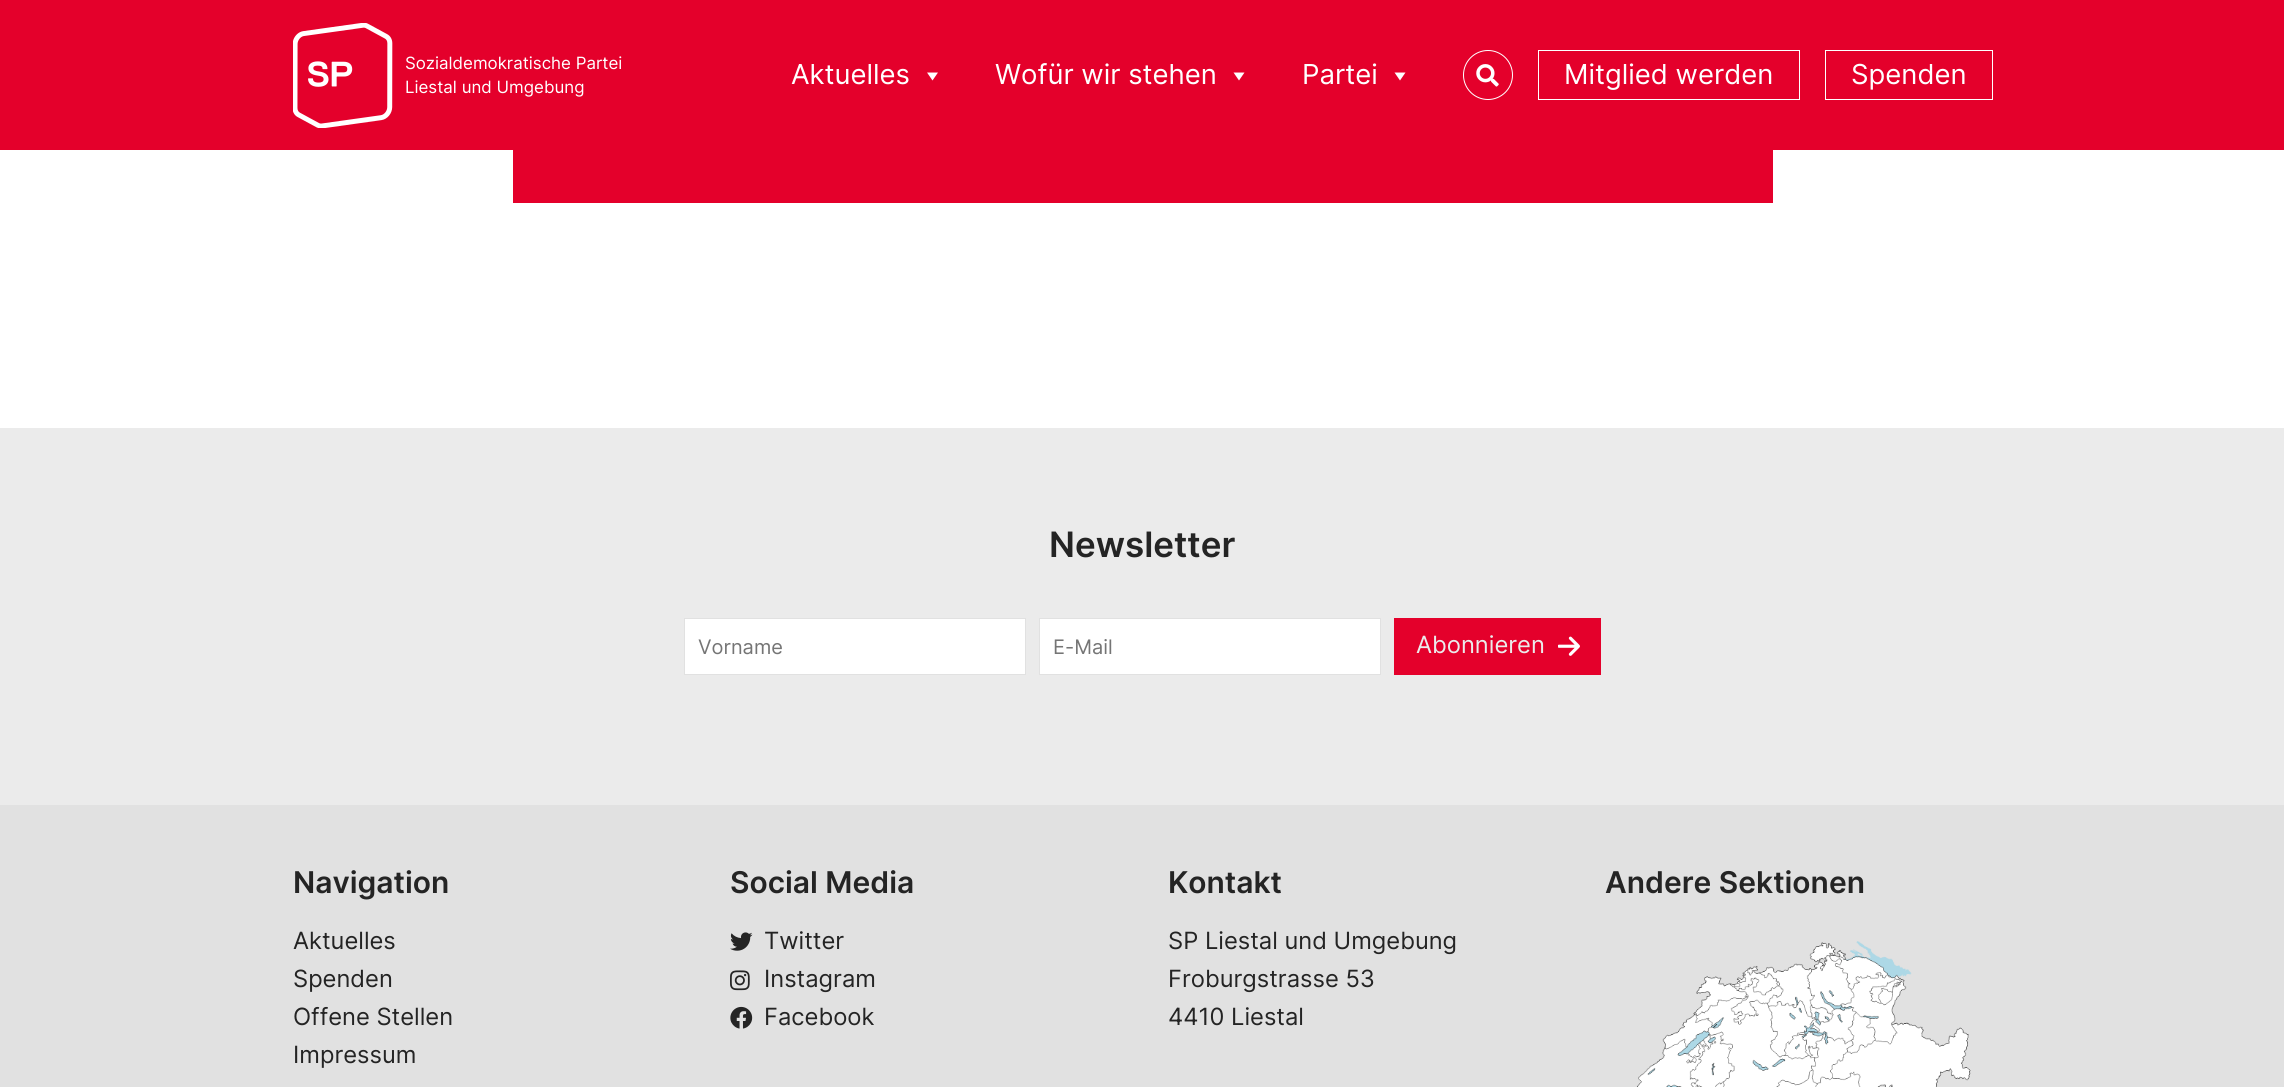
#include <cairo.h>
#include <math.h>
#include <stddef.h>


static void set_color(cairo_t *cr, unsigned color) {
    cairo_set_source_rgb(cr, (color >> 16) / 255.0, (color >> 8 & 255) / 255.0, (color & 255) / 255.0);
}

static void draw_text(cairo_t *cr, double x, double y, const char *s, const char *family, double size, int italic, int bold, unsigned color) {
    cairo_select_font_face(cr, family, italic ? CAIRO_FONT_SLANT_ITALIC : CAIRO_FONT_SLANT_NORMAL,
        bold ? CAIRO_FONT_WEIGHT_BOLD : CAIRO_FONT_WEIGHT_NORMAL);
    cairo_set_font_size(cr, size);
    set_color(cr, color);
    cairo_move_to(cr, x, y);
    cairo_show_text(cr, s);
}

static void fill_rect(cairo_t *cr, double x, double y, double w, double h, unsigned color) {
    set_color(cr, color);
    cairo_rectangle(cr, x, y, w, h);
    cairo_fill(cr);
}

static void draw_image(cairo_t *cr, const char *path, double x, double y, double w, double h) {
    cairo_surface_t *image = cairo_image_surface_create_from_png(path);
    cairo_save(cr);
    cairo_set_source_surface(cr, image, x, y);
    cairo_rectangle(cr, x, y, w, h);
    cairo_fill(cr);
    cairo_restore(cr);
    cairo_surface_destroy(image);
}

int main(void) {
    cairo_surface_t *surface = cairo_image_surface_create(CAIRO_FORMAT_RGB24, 2284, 1087);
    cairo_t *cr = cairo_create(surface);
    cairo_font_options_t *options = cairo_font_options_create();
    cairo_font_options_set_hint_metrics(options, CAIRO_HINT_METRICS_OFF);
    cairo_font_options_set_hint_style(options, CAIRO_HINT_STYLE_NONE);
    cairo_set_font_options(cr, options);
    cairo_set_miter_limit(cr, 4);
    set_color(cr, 0xFFFFFF);
    cairo_paint(cr);
    fill_rect(cr, 0, 0, 2284, 150, 0xE4002B);
    draw_image(cr, "assets/img1.png", 293, 23, 100, 105);
    draw_text(cr, 405, 69, "Sozialdemokratische Partei", "Inter", 16.9, 0, 0, 0xFFFFFF);
    draw_text(cr, 405, 93, "Liestal und Umgebung", "Inter", 16.9, 0, 0, 0xFFFFFF);
    draw_text(cr, 791, 84, "Aktuelles", "Inter", 27.5, 0, 0, 0xFFFFFF);
    cairo_new_path(cr);
    cairo_move_to(cr, 938, 72.5);
    cairo_line_to(cr, 932.5, 80.5);
    cairo_line_to(cr, 927, 72.5);
    cairo_close_path(cr);
    cairo_fill(cr);
    draw_text(cr, 995, 84, "Wofür wir stehen", "Inter", 27.5, 0, 0, 0xFFFFFF);
    cairo_new_path(cr);
    cairo_move_to(cr, 1244.5, 72.5);
    cairo_line_to(cr, 1239, 80.5);
    cairo_line_to(cr, 1233.5, 72.5);
    cairo_close_path(cr);
    cairo_fill(cr);
    draw_text(cr, 1302, 84, "Partei", "Inter", 27.5, 0, 0, 0xFFFFFF);
    cairo_new_path(cr);
    cairo_move_to(cr, 1405.5, 72.5);
    cairo_line_to(cr, 1400, 80.5);
    cairo_line_to(cr, 1394.5, 72.5);
    cairo_close_path(cr);
    cairo_fill(cr);
    cairo_arc(cr, 1488, 75, 24.5, 0, 2 * M_PI);
    cairo_set_line_width(cr, 1);
    cairo_stroke(cr);
    draw_image(cr, "assets/img2.png", 1476, 64, 23, 23);
    cairo_rectangle(cr, 1538.5, 50.5, 261, 49);
    cairo_stroke(cr);
    draw_text(cr, 1564, 84, "Mitglied werden", "Inter", 27.5, 0, 0, 0xFFFFFF);
    cairo_rectangle(cr, 1825.5, 50.5, 167, 49);
    cairo_stroke(cr);
    draw_text(cr, 1851, 84, "Spenden", "Inter", 27.5, 0, 0, 0xFFFFFF);
    fill_rect(cr, 513, 150, 1260, 53, 0xE4002B);
    fill_rect(cr, 0, 428, 2284, 377, 0xEBEBEB);
    draw_text(cr, 1049, 557, "Newsletter", "Inter SemiBold", 35, 0, 0, 0x242424);
    set_color(cr, 0xFFFFFF);
    cairo_rectangle(cr, 684.5, 618.5, 341, 56);
    cairo_fill_preserve(cr);
    set_color(cr, 0xE1E1E1);
    cairo_stroke(cr);
    draw_text(cr, 698, 654, "Vorname", "Inter", 20, 0, 0, 0x757575);
    set_color(cr, 0xFFFFFF);
    cairo_rectangle(cr, 1039.5, 618.5, 341, 56);
    cairo_fill_preserve(cr);
    set_color(cr, 0xE1E1E1);
    cairo_stroke(cr);
    draw_text(cr, 1053, 654, "E-Mail", "Inter", 20, 0, 0, 0x757575);
    fill_rect(cr, 1394, 618, 207, 57, 0xE4002B);
    draw_text(cr, 1416, 653, "Abonnieren", "Inter", 23.75, 0, 0, 0xEBEBEB);
    draw_image(cr, "assets/img3.png", 1558, 636, 22, 20);
    fill_rect(cr, 0, 805, 2284, 282, 0xE1E1E1);
    draw_text(cr, 293, 893, "Navigation", "Inter SemiBold", 30, 0, 0, 0x242424);
    draw_text(cr, 293, 949, "Aktuelles", "Inter", 23.75, 0, 0, 0x242424);
    draw_text(cr, 293, 987, "Spenden", "Inter", 23.75, 0, 0, 0x242424);
    draw_text(cr, 293, 1025, "Offene Stellen", "Inter", 23.75, 0, 0, 0x242424);
    draw_text(cr, 293, 1063, "Impressum", "Inter", 23.75, 0, 0, 0x242424);
    draw_text(cr, 730, 893, "Social Media", "Inter SemiBold", 30, 0, 0, 0x242424);
    draw_image(cr, "assets/img4.png", 730, 932, 23, 19);
    draw_text(cr, 764, 949, "Twitter", "Inter", 23.75, 0, 0, 0x242424);
    draw_image(cr, "assets/img5.png", 730, 970, 20, 21);
    draw_text(cr, 764, 987, "Instagram", "Inter", 23.75, 0, 0, 0x242424);
    draw_image(cr, "assets/img6.png", 730, 1006, 23, 23);
    draw_text(cr, 764, 1025, "Facebook", "Inter", 23.75, 0, 0, 0x242424);
    draw_text(cr, 1168, 893, "Kontakt", "Inter SemiBold", 30, 0, 0, 0x242424);
    draw_text(cr, 1168, 949, "SP Liestal und Umgebung", "Inter", 23.75, 0, 0, 0x242424);
    draw_text(cr, 1168, 987, "Froburgstrasse 53", "Inter", 23.75, 0, 0, 0x242424);
    draw_text(cr, 1168, 1025, "4410 Liestal", "Inter", 23.75, 0, 0, 0x242424);
    draw_text(cr, 1605, 893, "Andere Sektionen", "Inter SemiBold", 30, 0, 0, 0x242424);
    draw_image(cr, "assets/img7.png", 1637, 941, 334, 146);
    cairo_surface_write_to_png(surface, "output.png");
    cairo_font_options_destroy(options);
    cairo_destroy(cr);
    cairo_surface_destroy(surface);
    return 0;
}
